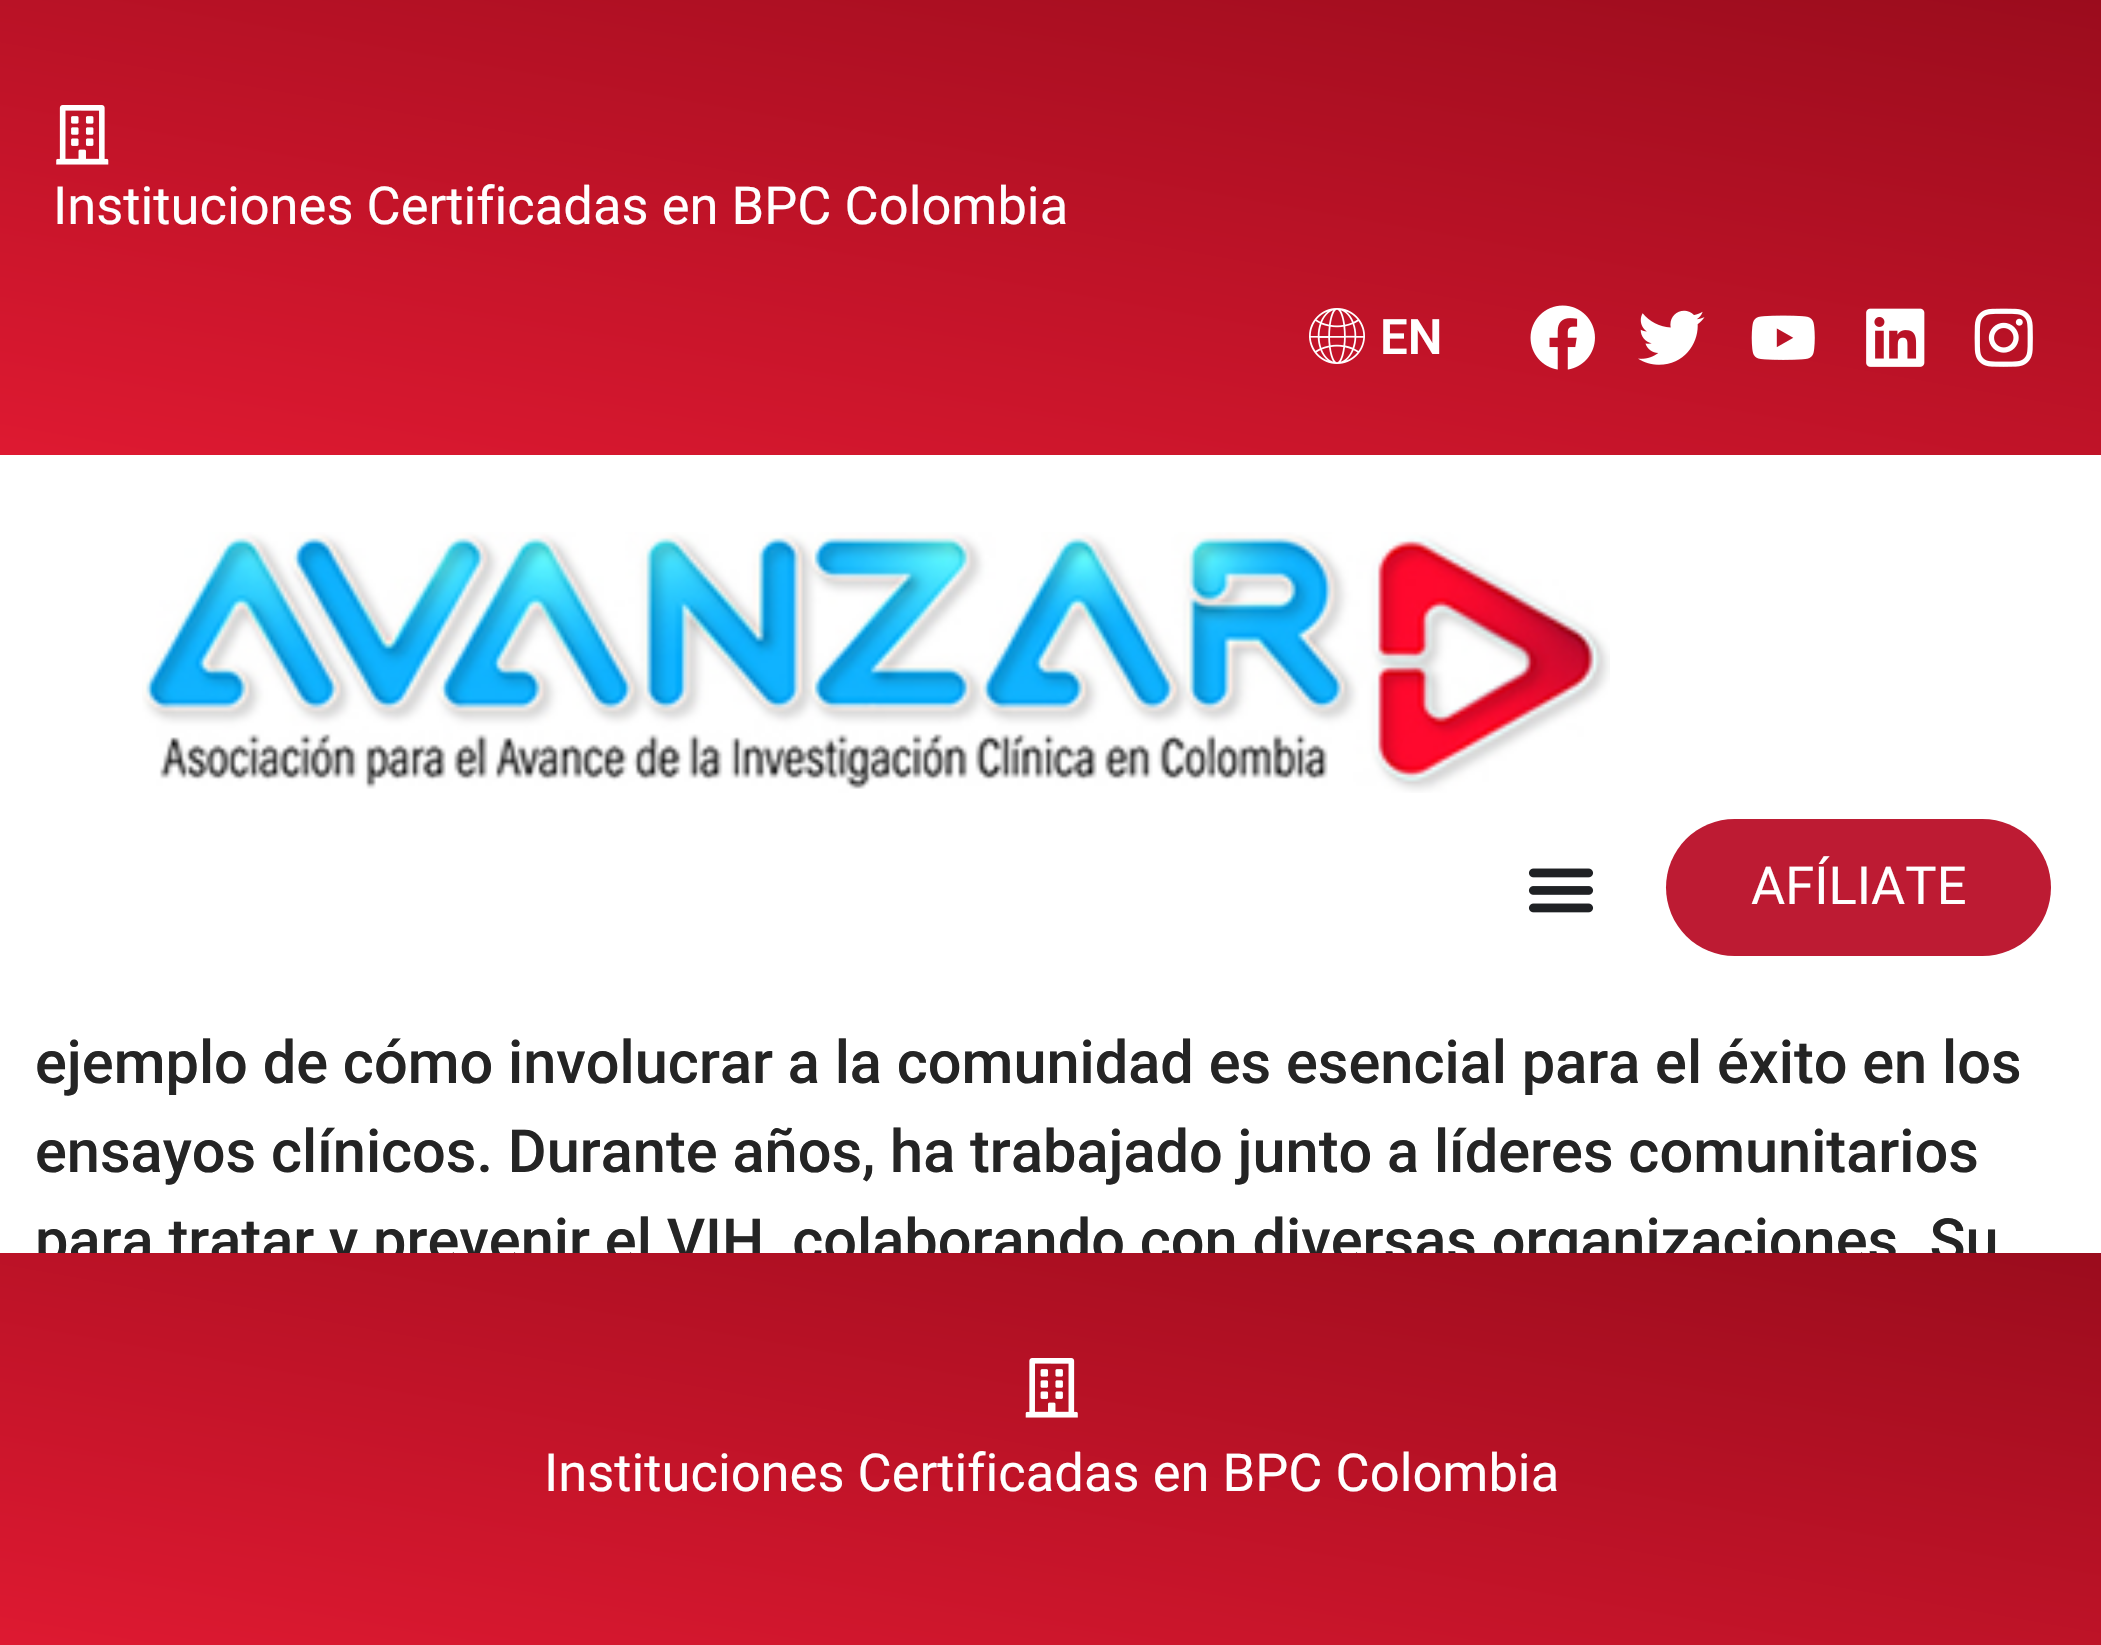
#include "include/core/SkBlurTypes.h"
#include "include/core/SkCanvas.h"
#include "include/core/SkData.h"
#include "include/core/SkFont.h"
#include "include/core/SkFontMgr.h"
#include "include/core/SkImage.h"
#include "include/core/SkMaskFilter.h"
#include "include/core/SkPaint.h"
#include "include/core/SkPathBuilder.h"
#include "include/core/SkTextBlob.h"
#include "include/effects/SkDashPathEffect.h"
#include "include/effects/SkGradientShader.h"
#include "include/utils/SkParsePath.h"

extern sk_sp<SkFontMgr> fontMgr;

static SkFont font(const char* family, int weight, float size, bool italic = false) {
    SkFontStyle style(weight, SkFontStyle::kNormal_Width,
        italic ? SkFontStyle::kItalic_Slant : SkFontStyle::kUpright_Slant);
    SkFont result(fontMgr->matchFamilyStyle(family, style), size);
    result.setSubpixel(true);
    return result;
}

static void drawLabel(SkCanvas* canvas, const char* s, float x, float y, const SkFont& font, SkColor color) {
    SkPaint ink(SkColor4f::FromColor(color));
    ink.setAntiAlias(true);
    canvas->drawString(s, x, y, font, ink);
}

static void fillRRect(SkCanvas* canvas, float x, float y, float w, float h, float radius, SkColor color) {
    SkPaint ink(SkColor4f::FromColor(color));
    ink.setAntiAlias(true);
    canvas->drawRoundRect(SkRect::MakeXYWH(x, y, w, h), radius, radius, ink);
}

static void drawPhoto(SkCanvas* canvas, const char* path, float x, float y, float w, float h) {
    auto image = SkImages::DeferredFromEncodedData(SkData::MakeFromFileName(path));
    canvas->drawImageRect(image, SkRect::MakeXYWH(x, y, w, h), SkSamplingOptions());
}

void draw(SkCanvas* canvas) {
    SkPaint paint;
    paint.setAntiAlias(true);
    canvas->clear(0xFFFFFFFF);
    {
        const SkColor colors[] = {0xFF9B0C1D, 0xFFDE1931};
        const float stops[] = {0, 1};
        const SkPoint ends[] = {{1122, -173}, {981, 628}};
        paint.setShader(SkGradientShader::MakeLinear(ends, colors, stops, 2, SkTileMode::kClamp));
        paint.setAlpha(255);
    }
    canvas->drawRect(SkRect::MakeXYWH(0, 0, 2101, 455), paint);
    drawPhoto(canvas, "assets/img1.png", 56, 105, 53, 60);
    SkFont font1 = font("Roboto", 400, 52.5f);
    drawLabel(canvas, "Instituciones Certificadas en BPC Colombia", 53, 224, font1, 0xFFFFFFFF);
    drawPhoto(canvas, "assets/img2.png", 1309, 308, 56, 56);
    SkFont font2 = font("Roboto", 600, 49);
    drawLabel(canvas, "EN", 1380, 354, font2, 0xFFFFFFFF);
    drawPhoto(canvas, "assets/img3.png", 1530, 305, 65, 65);
    drawPhoto(canvas, "assets/img4.png", 1638, 310, 67, 55);
    drawPhoto(canvas, "assets/img5.png", 1751, 315, 64, 45);
    drawPhoto(canvas, "assets/img6.png", 1866, 308, 59, 59);
    drawPhoto(canvas, "assets/img7.png", 1974, 308, 59, 59);
    drawPhoto(canvas, "assets/img8.png", 142, 532, 1468, 261);
    drawPhoto(canvas, "assets/img9.png", 1528, 868, 66, 45);
    fillRRect(canvas, 1666, 819, 385, 137, 68.5f, 0xFFBD1B33);
    drawLabel(canvas, "AFÍLIATE", 1751, 904, font1, 0xFFFFFFFF);
    SkFont font3 = font("Roboto", 500, 59.5f);
    drawLabel(canvas, "ejemplo de cómo involucrar a la comunidad es esencial para el éxito en los", 35, 1083, font3, 0xFF242424);
    drawLabel(canvas, "ensayos clínicos. Durante años, ha trabajado junto a líderes comunitarios", 35, 1172, font3, 0xFF242424);
    drawLabel(canvas, "para tratar y prevenir el VIH, colaborando con diversas organizaciones. Su", 35, 1261, font3, 0xFF242424);
    {
        const SkColor colors[] = {0xFF9B0C1D, 0xFFDE1931};
        const float stops[] = {0, 1};
        const SkPoint ends[] = {{1117, 1079}, {987, 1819}};
        paint.setShader(SkGradientShader::MakeLinear(ends, colors, stops, 2, SkTileMode::kClamp));
        paint.setAlpha(255);
    }
    canvas->drawRect(SkRect::MakeXYWH(0, 1253, 2101, 392), paint);
    drawPhoto(canvas, "assets/img10.png", 1025, 1358, 53, 60);
    drawLabel(canvas, "Instituciones Certificadas en BPC Colombia", 544, 1491, font1, 0xFFFFFFFF);
}
